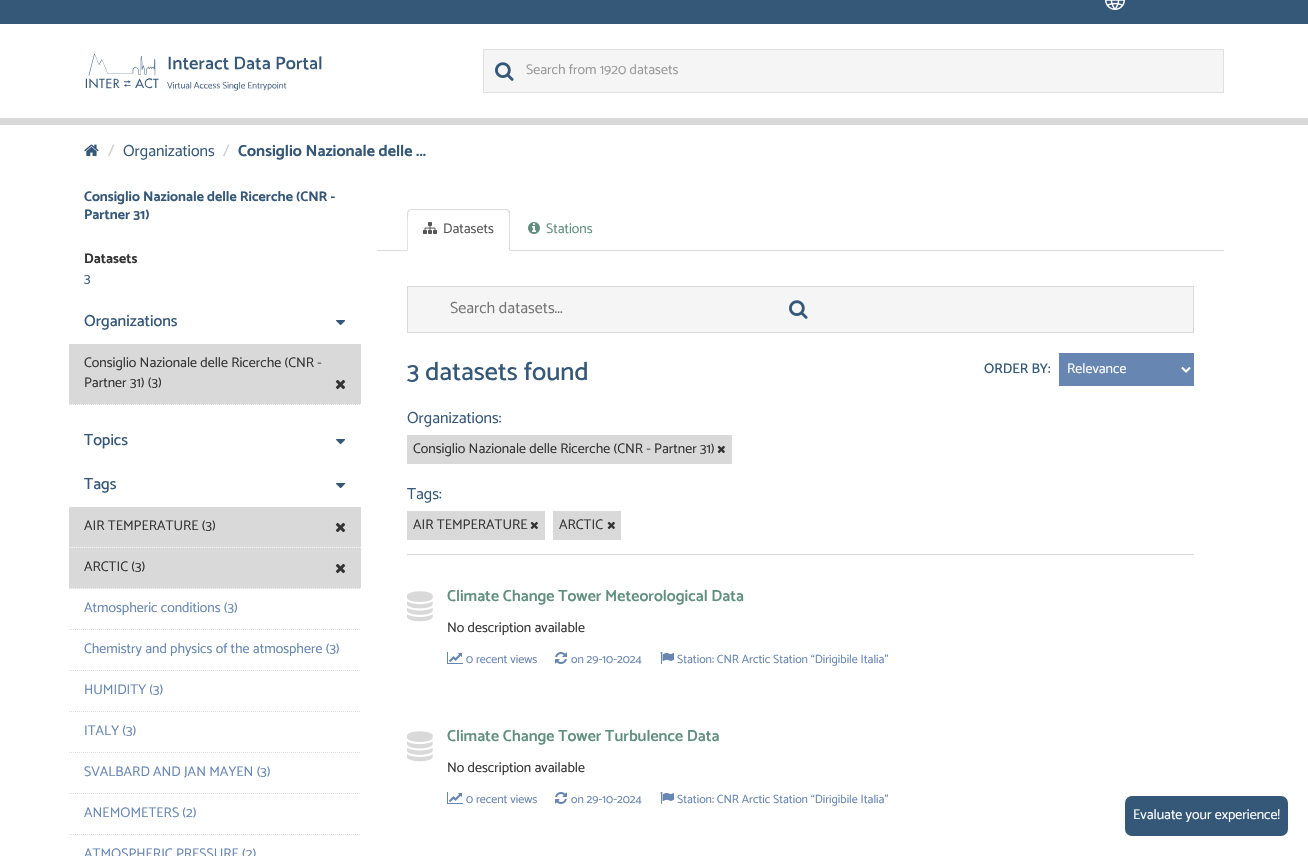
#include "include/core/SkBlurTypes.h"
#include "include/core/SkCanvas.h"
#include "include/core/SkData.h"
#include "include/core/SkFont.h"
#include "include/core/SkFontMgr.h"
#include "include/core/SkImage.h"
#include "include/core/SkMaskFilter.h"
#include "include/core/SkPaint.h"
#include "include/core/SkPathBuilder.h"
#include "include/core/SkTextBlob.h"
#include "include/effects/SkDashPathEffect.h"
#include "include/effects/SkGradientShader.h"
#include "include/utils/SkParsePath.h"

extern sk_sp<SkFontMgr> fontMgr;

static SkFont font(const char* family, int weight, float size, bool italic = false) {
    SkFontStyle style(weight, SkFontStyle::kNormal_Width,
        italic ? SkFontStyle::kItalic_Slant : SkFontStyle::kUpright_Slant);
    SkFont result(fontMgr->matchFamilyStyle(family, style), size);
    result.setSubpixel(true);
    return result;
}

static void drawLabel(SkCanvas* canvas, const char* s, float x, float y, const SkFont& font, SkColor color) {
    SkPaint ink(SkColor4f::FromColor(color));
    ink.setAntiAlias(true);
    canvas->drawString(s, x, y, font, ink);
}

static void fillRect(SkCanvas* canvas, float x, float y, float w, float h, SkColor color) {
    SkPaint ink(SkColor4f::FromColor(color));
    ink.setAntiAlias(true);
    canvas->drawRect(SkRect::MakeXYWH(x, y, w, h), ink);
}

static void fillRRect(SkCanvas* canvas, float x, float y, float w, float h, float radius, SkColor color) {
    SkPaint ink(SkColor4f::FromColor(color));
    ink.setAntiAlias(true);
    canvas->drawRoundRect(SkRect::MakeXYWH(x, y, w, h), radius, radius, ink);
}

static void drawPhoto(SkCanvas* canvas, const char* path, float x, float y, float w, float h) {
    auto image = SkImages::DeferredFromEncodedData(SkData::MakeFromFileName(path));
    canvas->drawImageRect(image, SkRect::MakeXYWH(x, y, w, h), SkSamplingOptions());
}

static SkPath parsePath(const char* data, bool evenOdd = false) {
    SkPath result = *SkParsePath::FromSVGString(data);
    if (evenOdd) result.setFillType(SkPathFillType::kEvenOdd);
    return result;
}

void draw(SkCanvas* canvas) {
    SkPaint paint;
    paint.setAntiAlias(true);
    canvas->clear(0xFFFFFFFF);
    fillRect(canvas, 0, 0, 1308, 24, 0xFF355778);
    drawPhoto(canvas, "assets/img1.png", 1105, 0, 20, 10);
    fillRect(canvas, 0, 118, 1308, 7, 0xFFD9D9D9);
    drawPhoto(canvas, "assets/img2.png", 85, 53, 237, 38);
    paint.setColor(0xFFF5F5F5);
    canvas->drawRect(SkRect::MakeXYWH(483.5f, 49.5f, 740, 43), paint);
    paint.setStroke(true);
    paint.setStrokeWidth(1);
    paint.setColor(0xFFE0E0E0);
    canvas->drawRect(SkRect::MakeXYWH(483.5f, 49.5f, 740, 43), paint);
    drawPhoto(canvas, "assets/img3.png", 495, 62, 19, 19);
    SkFont font1 = font("Catamaran", 400, 14);
    drawLabel(canvas, "Search from 1920 datasets", 526, 74, font1, 0xFF999999);
    drawPhoto(canvas, "assets/img4.png", 84, 144, 15, 12);
    SkFont font2 = font("Catamaran", 400, 16);
    drawLabel(canvas, "/", 108, 156, font2, 0xFFCCCCCC);
    drawLabel(canvas, "Organizations", 123, 156, font2, 0xFF355778);
    drawLabel(canvas, "/", 223, 156, font2, 0xFFCCCCCC);
    SkFont font3 = font("Catamaran", 700, 16);
    drawLabel(canvas, "Consiglio Nazionale delle ...", 238, 156, font3, 0xFF355778);
    SkFont font4 = font("Catamaran", 700, 14);
    drawLabel(canvas, "Consiglio Nazionale delle Ricerche (CNR -", 84, 201, font4, 0xFF355778);
    drawLabel(canvas, "Partner 31)", 84, 219, font4, 0xFF355778);
    drawLabel(canvas, "Datasets", 84, 263, font4, 0xFF333333);
    drawLabel(canvas, "3", 84, 283, font1, 0xFF355778);
    SkFont font5 = font("Catamaran", 500, 16);
    drawLabel(canvas, "Organizations", 84, 326, font5, 0xFF355778);
    drawPhoto(canvas, "assets/img5.png", 336, 320, 10, 6);
    fillRect(canvas, 69, 344, 292, 60, 0xFFD9D9D9);
    drawLabel(canvas, "Consiglio Nazionale delle Ricerche (CNR -", 84, 367, font1, 0xFF333333);
    drawLabel(canvas, "Partner 31) (3)", 84, 387, font1, 0xFF333333);
    drawPhoto(canvas, "assets/img6.png", 335, 379, 11, 11);
    paint.setColor(0xFFDDDDDD);
    paint.setPathEffect(SkDashPathEffect::Make({{1, 1}}, 0));
    canvas->drawPath(parsePath("M69 404.5H361"), paint);
    paint.setPathEffect(nullptr);
    drawLabel(canvas, "Topics", 84, 445, font5, 0xFF355778);
    drawPhoto(canvas, "assets/img5.png", 336, 439, 10, 6);
    drawLabel(canvas, "Tags", 84, 489, font5, 0xFF355778);
    drawPhoto(canvas, "assets/img5.png", 336, 483, 10, 6);
    fillRect(canvas, 70, 547, 291, 1, 0xFFF6F6F6);
    paint.setPathEffect(SkDashPathEffect::Make({{1, 1}}, 0));
    canvas->drawPath(parsePath("M69 547.5H361"), paint);
    paint.setPathEffect(nullptr);
    fillRect(canvas, 69, 507, 292, 40, 0xFFD9D9D9);
    drawLabel(canvas, "AIR TEMPERATURE (3)", 84, 530, font1, 0xFF333333);
    drawPhoto(canvas, "assets/img6.png", 335, 522, 11, 11);
    fillRect(canvas, 70, 588, 291, 1, 0xFFF6F6F6);
    paint.setPathEffect(SkDashPathEffect::Make({{1, 1}}, 0));
    canvas->drawPath(parsePath("M69 588.5H361"), paint);
    paint.setPathEffect(nullptr);
    fillRect(canvas, 69, 548, 292, 40, 0xFFD9D9D9);
    drawLabel(canvas, "ARCTIC (3)", 84, 571, font1, 0xFF333333);
    drawPhoto(canvas, "assets/img6.png", 335, 563, 11, 11);
    paint.setPathEffect(SkDashPathEffect::Make({{1, 1}}, 0));
    canvas->drawPath(parsePath("M69 629.5H361"), paint);
    paint.setPathEffect(nullptr);
    drawLabel(canvas, "Atmospheric conditions (3)", 84, 612, font1, 0xFF6786B2);
    paint.setPathEffect(SkDashPathEffect::Make({{1, 1}}, 0));
    canvas->drawPath(parsePath("M69 670.5H361"), paint);
    paint.setPathEffect(nullptr);
    drawLabel(canvas, "Chemistry and physics of the atmosphere (3)", 84, 653, font1, 0xFF6786B2);
    paint.setPathEffect(SkDashPathEffect::Make({{1, 1}}, 0));
    canvas->drawPath(parsePath("M69 711.5H361"), paint);
    paint.setPathEffect(nullptr);
    drawLabel(canvas, "HUMIDITY (3)", 84, 694, font1, 0xFF6786B2);
    paint.setPathEffect(SkDashPathEffect::Make({{1, 1}}, 0));
    canvas->drawPath(parsePath("M69 752.5H361"), paint);
    paint.setPathEffect(nullptr);
    drawLabel(canvas, "ITALY (3)", 84, 735, font1, 0xFF6786B2);
    paint.setPathEffect(SkDashPathEffect::Make({{1, 1}}, 0));
    canvas->drawPath(parsePath("M69 793.5H361"), paint);
    paint.setPathEffect(nullptr);
    drawLabel(canvas, "SVALBARD AND JAN MAYEN (3)", 84, 776, font1, 0xFF6786B2);
    paint.setPathEffect(SkDashPathEffect::Make({{1, 1}}, 0));
    canvas->drawPath(parsePath("M69 834.5H361"), paint);
    paint.setPathEffect(nullptr);
    drawLabel(canvas, "ANEMOMETERS (2)", 84, 817, font1, 0xFF6786B2);
    drawLabel(canvas, "ATMOSPHERIC PRESSURE (2)", 84, 858, font1, 0xFF6786B2);
    fillRect(canvas, 377, 250, 847, 1, 0xFFDDDDDD);
    paint.setStroke(false);
    paint.setColor(0xFFFFFFFF);
    canvas->drawPath(parsePath("M411 209H506C508 209 510 211 510 213V251H407V213C407 211 409 209 411 209Z"), paint);
    paint.setColor(0xFFDDDDDD);
    canvas->drawPath(parsePath("M411 209L408 210L409 211L411 210H506L508 211L509 210L506 209Z"), paint);
    canvas->drawPath(parsePath("M510 251V213C510 212 510 211 509 210L508 211C510 213 509 245 509 250Z"), paint);
    canvas->drawPath(parsePath("M407 251L408 250C408 245 407 213 409 211L408 210L407 213Z"), paint);
    drawPhoto(canvas, "assets/img7.png", 423, 222, 14, 12);
    drawLabel(canvas, "Datasets", 443, 233, font1, 0xFF555555);
    drawPhoto(canvas, "assets/img8.png", 528, 222, 12, 12);
    drawLabel(canvas, "Stations", 546, 233, font1, 0xFF608E7F);
    fillRect(canvas, 407, 554, 787, 1, 0xFFD9D9D9);
    paint.setColor(0xFFF5F5F5);
    canvas->drawRect(SkRect::MakeXYWH(407.5f, 286.5f, 786, 46), paint);
    paint.setStroke(true);
    paint.setColor(0xFFD9D9D9);
    canvas->drawRect(SkRect::MakeXYWH(407.5f, 286.5f, 786, 46), paint);
    drawLabel(canvas, "Search datasets...", 450, 313, font2, 0xFF757575);
    drawPhoto(canvas, "assets/img3.png", 789, 300, 19, 19);
    SkFont font6 = font("Catamaran", 500, 26);
    drawLabel(canvas, "3 datasets found", 407, 380, font6, 0xFF355778);
    SkFont font7 = font("Catamaran", 500, 14);
    drawLabel(canvas, "ORDER BY:", 984, 373, font7, 0xFF355778);
    fillRect(canvas, 1059, 353, 135, 33, 0xFF6786B2);
    paint.setStrokeWidth(2);
    paint.setColor(0xFFFFFFFF);
    canvas->drawPath(parsePath("M1182 367.5L1186 371.5L1190 367.5"), paint);
    drawLabel(canvas, "Relevance", 1067, 373, font1, 0xFFFFFFFF);
    drawLabel(canvas, "Organizations:", 407, 423, font2, 0xFF355778);
    fillRect(canvas, 407, 435, 325, 29, 0xFFD9D9D9);
    drawLabel(canvas, "Consiglio Nazionale delle Ricerche (CNR - Partner 31)", 413, 453, font1, 0xFF333333);
    drawPhoto(canvas, "assets/img9.png", 717, 445, 8, 9);
    drawLabel(canvas, "Tags:", 407, 499, font2, 0xFF355778);
    fillRect(canvas, 407, 511, 138, 29, 0xFFD9D9D9);
    drawLabel(canvas, "AIR TEMPERATURE", 413, 529, font1, 0xFF333333);
    drawPhoto(canvas, "assets/img9.png", 530, 521, 8, 9);
    fillRect(canvas, 553, 511, 68, 29, 0xFFD9D9D9);
    drawLabel(canvas, "ARCTIC", 559, 529, font1, 0xFF333333);
    drawPhoto(canvas, "assets/img9.png", 607, 521, 8, 9);
    drawPhoto(canvas, "assets/img10.png", 407, 591, 26, 31);
    SkFont font8 = font("Catamaran", 600, 16);
    drawLabel(canvas, "Climate Change Tower Meteorological Data", 447, 601, font8, 0xFF608E7F);
    drawLabel(canvas, "No description available", 447, 632, font1, 0xFF333333);
    drawPhoto(canvas, "assets/img11.png", 447, 652, 16, 12);
    SkFont font9 = font("Catamaran", 400, 12);
    drawLabel(canvas, "0 recent views", 466, 663, font9, 0xFF6786B2);
    drawPhoto(canvas, "assets/img12.png", 555, 652, 12, 12);
    drawLabel(canvas, "on 29-10-2024", 571, 663, font9, 0xFF6786B2);
    drawPhoto(canvas, "assets/img13.png", 660, 652, 14, 12);
    drawLabel(canvas, "Station: CNR Arctic Station “Dirigibile Italia”", 677, 663, font9, 0xFF6786B2);
    drawPhoto(canvas, "assets/img10.png", 407, 731, 26, 31);
    drawLabel(canvas, "Climate Change Tower Turbulence Data", 447, 741, font8, 0xFF608E7F);
    drawLabel(canvas, "No description available", 447, 772, font1, 0xFF333333);
    drawPhoto(canvas, "assets/img11.png", 447, 792, 16, 12);
    drawLabel(canvas, "0 recent views", 466, 803, font9, 0xFF6786B2);
    drawPhoto(canvas, "assets/img12.png", 555, 792, 12, 12);
    drawLabel(canvas, "on 29-10-2024", 571, 803, font9, 0xFF6786B2);
    drawPhoto(canvas, "assets/img13.png", 660, 792, 14, 12);
    drawLabel(canvas, "Station: CNR Arctic Station “Dirigibile Italia”", 677, 803, font9, 0xFF6786B2);
    fillRRect(canvas, 1125, 796, 163, 40, 7, 0xFF355778);
    drawLabel(canvas, "Evaluate your experience!", 1133, 819, font1, 0xFFFFFFFF);
}
